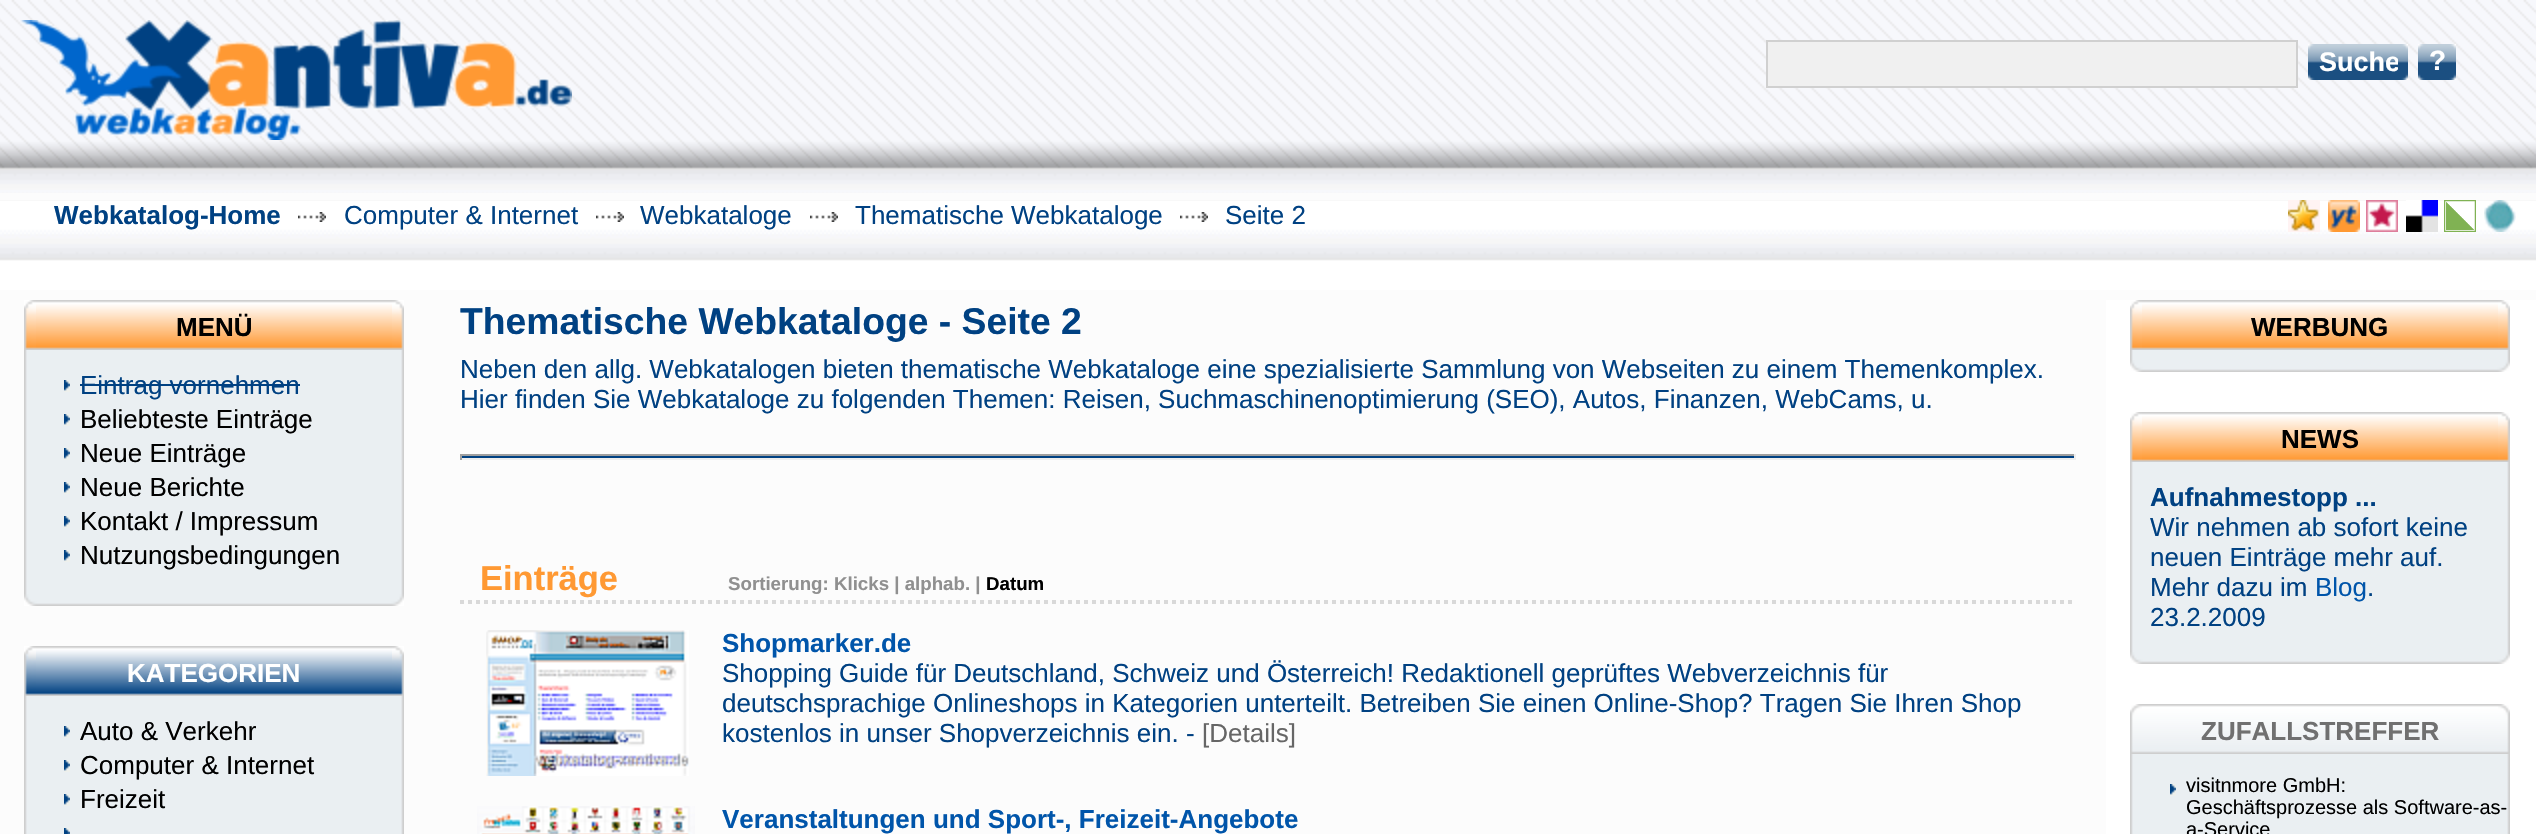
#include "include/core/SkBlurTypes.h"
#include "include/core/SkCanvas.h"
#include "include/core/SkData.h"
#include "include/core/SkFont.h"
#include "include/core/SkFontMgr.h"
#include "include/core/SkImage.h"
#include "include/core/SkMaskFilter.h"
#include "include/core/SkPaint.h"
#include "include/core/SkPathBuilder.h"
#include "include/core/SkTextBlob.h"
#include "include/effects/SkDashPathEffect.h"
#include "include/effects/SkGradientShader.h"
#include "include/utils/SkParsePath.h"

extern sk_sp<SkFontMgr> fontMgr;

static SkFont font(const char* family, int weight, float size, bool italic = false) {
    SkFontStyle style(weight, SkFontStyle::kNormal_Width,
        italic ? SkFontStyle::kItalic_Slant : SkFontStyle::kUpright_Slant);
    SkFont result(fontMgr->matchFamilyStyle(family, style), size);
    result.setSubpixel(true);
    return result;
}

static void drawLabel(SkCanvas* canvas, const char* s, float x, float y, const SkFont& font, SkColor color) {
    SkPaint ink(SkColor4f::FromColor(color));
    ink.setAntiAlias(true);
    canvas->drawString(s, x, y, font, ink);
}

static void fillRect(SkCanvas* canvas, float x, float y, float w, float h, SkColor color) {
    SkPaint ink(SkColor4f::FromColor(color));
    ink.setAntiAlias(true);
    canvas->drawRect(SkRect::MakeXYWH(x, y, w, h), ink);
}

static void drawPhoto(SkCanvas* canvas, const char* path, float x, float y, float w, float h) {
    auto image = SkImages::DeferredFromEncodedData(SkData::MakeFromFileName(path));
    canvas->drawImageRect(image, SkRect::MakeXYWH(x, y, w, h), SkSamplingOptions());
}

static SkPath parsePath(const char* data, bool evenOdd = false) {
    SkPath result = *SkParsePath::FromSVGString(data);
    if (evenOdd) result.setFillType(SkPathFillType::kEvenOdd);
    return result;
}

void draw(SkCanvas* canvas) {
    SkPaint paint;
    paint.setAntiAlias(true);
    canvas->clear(0xFFFCFCFC);
    drawPhoto(canvas, "assets/img1.png", 0, 0, 2536, 193);
    drawPhoto(canvas, "assets/img2.png", 20, 20, 552, 120);
    paint.setColor(0xFFF0F0F0);
    canvas->drawRect(SkRect::MakeXYWH(1767, 41, 530, 46), paint);
    paint.setStroke(true);
    paint.setStrokeWidth(2);
    paint.setColor(0xFFD0D0D0);
    canvas->drawRect(SkRect::MakeXYWH(1767, 41, 530, 46), paint);
    drawPhoto(canvas, "assets/img3.png", 2308, 44, 10, 36);
    drawPhoto(canvas, "assets/img4.png", 2318, 44, 80, 36);
    SkFont font1 = font("Liberation Sans", 700, 27);
    drawLabel(canvas, "Suche", 2319, 71, font1, 0xFFFFFFFF);
    drawPhoto(canvas, "assets/img5.png", 2398, 44, 10, 36);
    drawPhoto(canvas, "assets/img3.png", 2418, 44, 10, 36);
    drawPhoto(canvas, "assets/img6.png", 2428, 44, 18, 36);
    SkFont font2 = font("Liberation Sans", 700, 28);
    drawLabel(canvas, "?", 2429, 70, font2, 0xFFFFFFFF);
    drawPhoto(canvas, "assets/img5.png", 2446, 44, 10, 36);
    fillRect(canvas, 0, 261, 2536, 29, 0xFFFFFFFF);
    drawPhoto(canvas, "assets/img7.png", 0, 200, 2536, 61);
    SkFont font3 = font("Liberation Sans", 700, 26);
    drawLabel(canvas, "Webkatalog-Home", 54, 224, font3, 0xFF004182);
    drawPhoto(canvas, "assets/img8.png", 298, 212, 28, 10);
    SkFont font4 = font("Liberation Sans", 400, 26);
    drawLabel(canvas, "Computer & Internet", 344, 224, font4, 0xFF004182);
    drawPhoto(canvas, "assets/img8.png", 596, 212, 28, 10);
    drawLabel(canvas, "Webkataloge", 640, 224, font4, 0xFF004182);
    drawPhoto(canvas, "assets/img8.png", 810, 212, 28, 10);
    drawLabel(canvas, "Thematische Webkataloge", 855, 224, font4, 0xFF004182);
    drawPhoto(canvas, "assets/img8.png", 1180, 212, 28, 10);
    drawLabel(canvas, "Seite 2", 1225, 224, font4, 0xFF004182);
    drawPhoto(canvas, "assets/img9.png", 2288, 200, 32, 32);
    drawPhoto(canvas, "assets/img10.png", 2328, 200, 32, 32);
    drawPhoto(canvas, "assets/img11.png", 2366, 200, 32, 32);
    drawPhoto(canvas, "assets/img12.png", 2406, 200, 32, 32);
    drawPhoto(canvas, "assets/img13.png", 2444, 200, 32, 32);
    drawPhoto(canvas, "assets/img14.png", 2484, 200, 32, 32);
    drawPhoto(canvas, "assets/img15.png", 24, 300, 12, 50);
    drawPhoto(canvas, "assets/img16.png", 36, 300, 356, 50);
    drawLabel(canvas, "MENÜ", 176, 336, font3, 0xFF000000);
    drawPhoto(canvas, "assets/img17.png", 392, 300, 12, 50);
    drawPhoto(canvas, "assets/img18.png", 24, 350, 380, 244);
    drawPhoto(canvas, "assets/img19.png", 64, 380, 6, 12);
    drawLabel(canvas, "Eintrag vornehmen", 80, 394, font4, 0xFF004182);
    fillRect(canvas, 80, 384, 220, 2, 0xFF004182);
    drawPhoto(canvas, "assets/img19.png", 64, 414, 6, 12);
    drawLabel(canvas, "Beliebteste Einträge", 80, 428, font4, 0xFF000000);
    drawPhoto(canvas, "assets/img19.png", 64, 448, 6, 12);
    drawLabel(canvas, "Neue Einträge", 80, 462, font4, 0xFF000000);
    drawPhoto(canvas, "assets/img19.png", 64, 482, 6, 12);
    drawLabel(canvas, "Neue Berichte", 80, 496, font4, 0xFF000000);
    drawPhoto(canvas, "assets/img19.png", 64, 516, 6, 12);
    drawLabel(canvas, "Kontakt / Impressum", 80, 530, font4, 0xFF000000);
    drawPhoto(canvas, "assets/img19.png", 64, 550, 6, 12);
    drawLabel(canvas, "Nutzungsbedingungen", 80, 564, font4, 0xFF000000);
    drawPhoto(canvas, "assets/img20.png", 24, 594, 380, 12);
    drawPhoto(canvas, "assets/img21.png", 24, 646, 12, 50);
    drawPhoto(canvas, "assets/img22.png", 36, 646, 356, 50);
    drawLabel(canvas, "KATEGORIEN", 127, 682, font3, 0xFFFFFFFF);
    drawPhoto(canvas, "assets/img23.png", 392, 646, 12, 50);
    drawPhoto(canvas, "assets/img24.png", 24, 696, 380, 138);
    drawPhoto(canvas, "assets/img19.png", 64, 726, 6, 12);
    drawLabel(canvas, "Auto & Verkehr", 80, 740, font4, 0xFF000000);
    drawPhoto(canvas, "assets/img19.png", 64, 760, 6, 12);
    drawLabel(canvas, "Computer & Internet", 80, 774, font4, 0xFF000000);
    drawPhoto(canvas, "assets/img19.png", 64, 794, 6, 12);
    drawLabel(canvas, "Freizeit", 80, 808, font4, 0xFF000000);
    drawPhoto(canvas, "assets/img25.png", 64, 828, 6, 6);
    SkFont font5 = font("Liberation Sans", 700, 37.3f);
    drawLabel(canvas, "Thematische Webkataloge - Seite 2", 460, 334, font5, 0xFF004182);
    drawLabel(canvas, "Neben den allg. Webkatalogen bieten thematische Webkataloge eine spezialisierte Sammlung von Webseiten zu einem Themenkomplex.", 460, 378, font4, 0xFF004182);
    drawLabel(canvas, "Hier finden Sie Webkataloge zu folgenden Themen: Reisen, Suchmaschinenoptimierung (SEO), Autos, Finanzen, WebCams, u.", 460, 408, font4, 0xFF004182);
    fillRect(canvas, 460, 456, 1616, 2, 0xFF004182);
    fillRect(canvas, 460, 454, 1616, 2, 0xFF9F9F9F);
    fillRect(canvas, 2074, 454, 2, 6, 0xFFEEEEEE);
    fillRect(canvas, 460, 458, 1616, 2, 0xFFEEEEEE);
    fillRect(canvas, 460, 454, 2, 6, 0xFF9F9F9F);
    paint.setStrokeWidth(4);
    paint.setColor(0xFFD9D9D9);
    paint.setPathEffect(SkDashPathEffect::Make({{4, 4}}, 0));
    canvas->drawPath(parsePath("M460 602H2076"), paint);
    paint.setPathEffect(nullptr);
    SkFont font6 = font("Liberation Sans", 700, 34.5f);
    drawLabel(canvas, "Einträge", 480, 590, font6, 0xFFFF9933);
    SkFont font7 = font("Liberation Sans", 700, 18.7f);
    drawLabel(canvas, "Sortierung: Klicks | alphab. |", 728, 590, font7, 0xFF909090);
    drawLabel(canvas, "Datum", 986, 590, font7, 0xFF000000);
    drawPhoto(canvas, "assets/img26.png", 486, 630, 203, 146);
    drawLabel(canvas, "Shopmarker.de", 722, 652, font3, 0xFF0055AA);
    drawLabel(canvas, "Shopping Guide für Deutschland, Schweiz und Österreich! Redaktionell geprüftes Webverzeichnis für", 722, 682, font4, 0xFF004182);
    drawLabel(canvas, "deutschsprachige Onlineshops in Kategorien unterteilt. Betreiben Sie einen Online-Shop? Tragen Sie Ihren Shop", 722, 712, font4, 0xFF004182);
    drawLabel(canvas, "kostenlos in unser Shopverzeichnis ein. -", 722, 742, font4, 0xFF004182);
    drawLabel(canvas, "[Details]", 1202, 742, font4, 0xFF666666);
    drawPhoto(canvas, "assets/img27.png", 477, 806, 218, 28);
    drawLabel(canvas, "Veranstaltungen und Sport-, Freizeit-Angebote", 722, 828, font3, 0xFF0055AA);
    fillRect(canvas, 2106, 300, 430, 534, 0xFFFFFFFF);
    drawPhoto(canvas, "assets/img15.png", 2130, 300, 12, 50);
    drawPhoto(canvas, "assets/img16.png", 2142, 300, 356, 50);
    drawLabel(canvas, "WERBUNG", 2251, 336, font3, 0xFF000000);
    drawPhoto(canvas, "assets/img17.png", 2498, 300, 12, 50);
    drawPhoto(canvas, "assets/img28.png", 2130, 350, 380, 10);
    drawPhoto(canvas, "assets/img20.png", 2130, 360, 380, 12);
    drawPhoto(canvas, "assets/img15.png", 2130, 412, 12, 50);
    drawPhoto(canvas, "assets/img16.png", 2142, 412, 356, 50);
    drawLabel(canvas, "NEWS", 2281, 448, font3, 0xFF000000);
    drawPhoto(canvas, "assets/img17.png", 2498, 412, 12, 50);
    drawPhoto(canvas, "assets/img29.png", 2130, 462, 380, 190);
    drawLabel(canvas, "Aufnahmestopp ...", 2150, 506, font3, 0xFF004182);
    drawLabel(canvas, "Wir nehmen ab sofort keine", 2150, 536, font4, 0xFF004182);
    drawLabel(canvas, "neuen Einträge mehr auf.", 2150, 566, font4, 0xFF004182);
    drawLabel(canvas, "Mehr dazu im", 2150, 596, font4, 0xFF004182);
    drawLabel(canvas, "Blog", 2315, 596, font4, 0xFF0055AA);
    drawLabel(canvas, ".", 2367, 596, font4, 0xFF004182);
    drawLabel(canvas, "23.2.2009", 2150, 626, font4, 0xFF004182);
    drawPhoto(canvas, "assets/img20.png", 2130, 652, 380, 12);
    drawPhoto(canvas, "assets/img30.png", 2130, 704, 12, 50);
    drawPhoto(canvas, "assets/img31.png", 2142, 704, 356, 50);
    drawLabel(canvas, "ZUFALLSTREFFER", 2201, 740, font3, 0xFF707070);
    drawPhoto(canvas, "assets/img32.png", 2498, 704, 12, 50);
    drawPhoto(canvas, "assets/img33.png", 2130, 754, 380, 80);
    drawPhoto(canvas, "assets/img19.png", 2170, 784, 6, 12);
    SkFont font8 = font("Liberation Sans", 400, 20);
    drawLabel(canvas, "visitnmore GmbH:", 2186, 792, font8, 0xFF000000);
    drawLabel(canvas, "Geschäftsprozesse als Software-as-", 2186, 814, font8, 0xFF000000);
    drawLabel(canvas, "a-Service", 2186, 836, font8, 0xFF000000);
}
